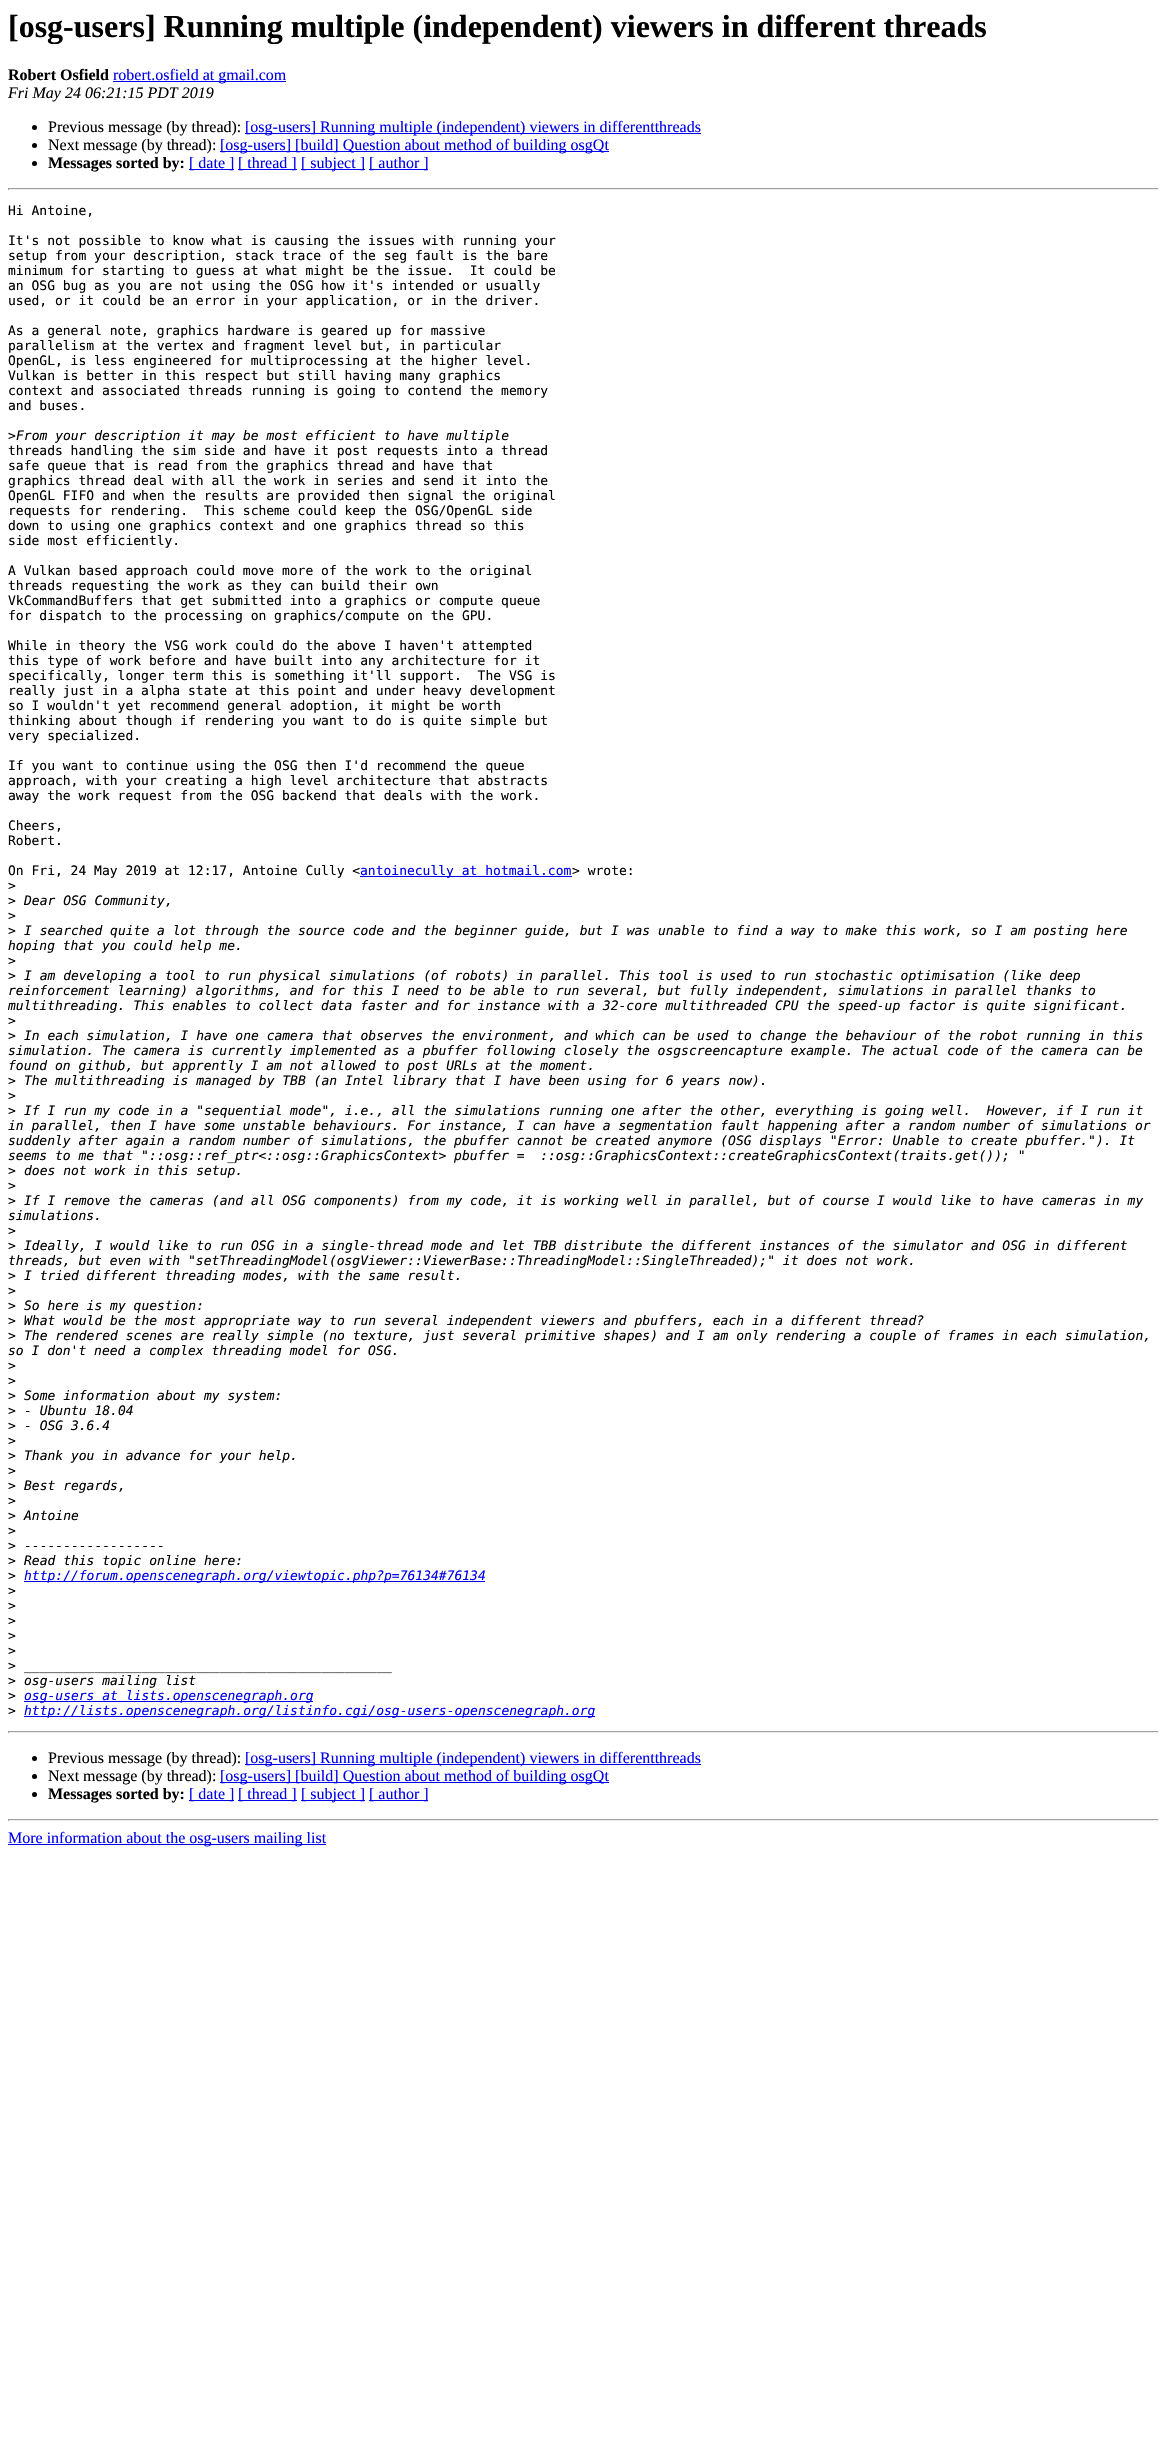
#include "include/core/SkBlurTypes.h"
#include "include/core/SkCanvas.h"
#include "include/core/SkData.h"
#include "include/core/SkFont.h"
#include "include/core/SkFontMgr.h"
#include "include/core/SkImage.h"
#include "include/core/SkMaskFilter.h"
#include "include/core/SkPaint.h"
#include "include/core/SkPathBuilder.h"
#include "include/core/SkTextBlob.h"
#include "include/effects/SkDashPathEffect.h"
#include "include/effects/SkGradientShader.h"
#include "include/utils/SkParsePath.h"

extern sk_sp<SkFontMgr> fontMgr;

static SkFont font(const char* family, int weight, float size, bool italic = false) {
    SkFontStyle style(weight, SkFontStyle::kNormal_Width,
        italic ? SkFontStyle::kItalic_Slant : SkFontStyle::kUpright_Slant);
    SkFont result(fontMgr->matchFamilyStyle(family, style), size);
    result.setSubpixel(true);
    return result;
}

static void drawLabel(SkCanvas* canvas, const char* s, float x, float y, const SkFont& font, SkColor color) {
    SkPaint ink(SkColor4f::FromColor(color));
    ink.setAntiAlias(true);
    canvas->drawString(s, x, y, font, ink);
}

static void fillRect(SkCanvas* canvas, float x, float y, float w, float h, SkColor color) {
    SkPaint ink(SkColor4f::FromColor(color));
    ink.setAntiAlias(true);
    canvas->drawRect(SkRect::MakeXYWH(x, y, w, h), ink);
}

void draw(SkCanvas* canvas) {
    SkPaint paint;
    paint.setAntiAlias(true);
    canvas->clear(0xFFFFFFFF);
    SkFont font1 = font("Liberation Serif", 700, 32);
    drawLabel(canvas, "[osg-users] Running multiple (independent) viewers in different threads", 8, 37, font1, 0xFF000000);
    SkFont font2 = font("Liberation Serif", 700, 16);
    drawLabel(canvas, "Robert Osfield", 8, 80, font2, 0xFF000000);
    fillRect(canvas, 113, 81, 173, 1, 0xFF0000EE);
    SkFont font3 = font("Liberation Serif", 400, 16);
    drawLabel(canvas, "robert.osfield at gmail.com", 113, 80, font3, 0xFF0000EE);
    SkFont font4 = font("Liberation Serif", 400, 16, true);
    drawLabel(canvas, "Fri May 24 06:21:15 PDT 2019", 8, 98, font4, 0xFF000000);
    paint.setColor(0xFF000000);
    canvas->drawCircle(34.5f, 127.5f, 2.5f, paint);
    drawLabel(canvas, "Previous message (by thread):", 48, 132, font3, 0xFF000000);
    fillRect(canvas, 245, 133, 456, 1, 0xFF0000EE);
    drawLabel(canvas, "[osg-users] Running multiple (independent) viewers in differentthreads", 245, 132, font3, 0xFF0000EE);
    canvas->drawCircle(34.5f, 145.5f, 2.5f, paint);
    drawLabel(canvas, "Next message (by thread):", 48, 150, font3, 0xFF000000);
    fillRect(canvas, 220, 151, 389, 1, 0xFF0000EE);
    drawLabel(canvas, "[osg-users] [build] Question about method of building osgQt", 220, 150, font3, 0xFF0000EE);
    canvas->drawCircle(34.5f, 163.5f, 2.5f, paint);
    drawLabel(canvas, "Messages sorted by:", 48, 168, font2, 0xFF000000);
    fillRect(canvas, 189, 169, 45, 1, 0xFF0000EE);
    drawLabel(canvas, "[ date ]", 189, 168, font3, 0xFF0000EE);
    fillRect(canvas, 238, 169, 59, 1, 0xFF0000EE);
    drawLabel(canvas, "[ thread ]", 238, 168, font3, 0xFF0000EE);
    fillRect(canvas, 301, 169, 64, 1, 0xFF0000EE);
    drawLabel(canvas, "[ subject ]", 301, 168, font3, 0xFF0000EE);
    fillRect(canvas, 369, 169, 59, 1, 0xFF0000EE);
    drawLabel(canvas, "[ author ]", 369, 168, font3, 0xFF0000EE);
    fillRect(canvas, 8, 188, 1151, 1, 0xFF9F9F9F);
    fillRect(canvas, 1158, 188, 1, 2, 0xFFEEEEEE);
    fillRect(canvas, 8, 189, 1151, 1, 0xFFEEEEEE);
    fillRect(canvas, 8, 188, 1, 2, 0xFF9F9F9F);
    SkFont font5 = font("DejaVu Sans Mono", 400, 13);
    drawLabel(canvas, "Hi Antoine,", 8, 215, font5, 0xFF000000);
    drawLabel(canvas, "It's not possible to know what is causing the issues with running your", 8, 245, font5, 0xFF000000);
    drawLabel(canvas, "setup from your description, stack trace of the seg fault is the bare", 8, 260, font5, 0xFF000000);
    drawLabel(canvas, "minimum for starting to guess at what might be the issue.  It could be", 8, 275, font5, 0xFF000000);
    drawLabel(canvas, "an OSG bug as you are not using the OSG how it's intended or usually", 8, 290, font5, 0xFF000000);
    drawLabel(canvas, "used, or it could be an error in your application, or in the driver.", 8, 305, font5, 0xFF000000);
    drawLabel(canvas, "As a general note, graphics hardware is geared up for massive", 8, 335, font5, 0xFF000000);
    drawLabel(canvas, "parallelism at the vertex and fragment level but, in particular", 8, 350, font5, 0xFF000000);
    drawLabel(canvas, "OpenGL, is less engineered for multiprocessing at the higher level.", 8, 365, font5, 0xFF000000);
    drawLabel(canvas, "Vulkan is better in this respect but still having many graphics", 8, 380, font5, 0xFF000000);
    drawLabel(canvas, "context and associated threads running is going to contend the memory", 8, 395, font5, 0xFF000000);
    drawLabel(canvas, "and buses.", 8, 410, font5, 0xFF000000);
    drawLabel(canvas, ">", 8, 440, font5, 0xFF000000);
    SkFont font6 = font("DejaVu Sans Mono", 400, 13, true);
    drawLabel(canvas, "From your description it may be most efficient to have multiple", 16, 440, font6, 0xFF000000);
    drawLabel(canvas, "threads handling the sim side and have it post requests into a thread", 8, 455, font5, 0xFF000000);
    drawLabel(canvas, "safe queue that is read from the graphics thread and have that", 8, 470, font5, 0xFF000000);
    drawLabel(canvas, "graphics thread deal with all the work in series and send it into the", 8, 485, font5, 0xFF000000);
    drawLabel(canvas, "OpenGL FIFO and when the results are provided then signal the original", 8, 500, font5, 0xFF000000);
    drawLabel(canvas, "requests for rendering.  This scheme could keep the OSG/OpenGL side", 8, 515, font5, 0xFF000000);
    drawLabel(canvas, "down to using one graphics context and one graphics thread so this", 8, 530, font5, 0xFF000000);
    drawLabel(canvas, "side most efficiently.", 8, 545, font5, 0xFF000000);
    drawLabel(canvas, "A Vulkan based approach could move more of the work to the original", 8, 575, font5, 0xFF000000);
    drawLabel(canvas, "threads requesting the work as they can build their own", 8, 590, font5, 0xFF000000);
    drawLabel(canvas, "VkCommandBuffers that get submitted into a graphics or compute queue", 8, 605, font5, 0xFF000000);
    drawLabel(canvas, "for dispatch to the processing on graphics/compute on the GPU.", 8, 620, font5, 0xFF000000);
    drawLabel(canvas, "While in theory the VSG work could do the above I haven't attempted", 8, 650, font5, 0xFF000000);
    drawLabel(canvas, "this type of work before and have built into any architecture for it", 8, 665, font5, 0xFF000000);
    drawLabel(canvas, "specifically, longer term this is something it'll support.  The VSG is", 8, 680, font5, 0xFF000000);
    drawLabel(canvas, "really just in a alpha state at this point and under heavy development", 8, 695, font5, 0xFF000000);
    drawLabel(canvas, "so I wouldn't yet recommend general adoption, it might be worth", 8, 710, font5, 0xFF000000);
    drawLabel(canvas, "thinking about though if rendering you want to do is quite simple but", 8, 725, font5, 0xFF000000);
    drawLabel(canvas, "very specialized.", 8, 740, font5, 0xFF000000);
    drawLabel(canvas, "If you want to continue using the OSG then I'd recommend the queue", 8, 770, font5, 0xFF000000);
    drawLabel(canvas, "approach, with your creating a high level architecture that abstracts", 8, 785, font5, 0xFF000000);
    drawLabel(canvas, "away the work request from the OSG backend that deals with the work.", 8, 800, font5, 0xFF000000);
    drawLabel(canvas, "Cheers,", 8, 830, font5, 0xFF000000);
    drawLabel(canvas, "Robert.", 8, 845, font5, 0xFF000000);
    drawLabel(canvas, "On Fri, 24 May 2019 at 12:17, Antoine Cully <", 8, 875, font5, 0xFF000000);
    fillRect(canvas, 360, 876, 212, 1, 0xFF0000EE);
    drawLabel(canvas, "antoinecully at hotmail.com", 360, 875, font5, 0xFF0000EE);
    drawLabel(canvas, "> wrote:", 572, 875, font5, 0xFF000000);
    drawLabel(canvas, ">", 8, 890, font5, 0xFF000000);
    drawLabel(canvas, ">", 8, 905, font5, 0xFF000000);
    drawLabel(canvas, "Dear OSG Community,", 24, 905, font6, 0xFF000000);
    drawLabel(canvas, ">", 8, 920, font5, 0xFF000000);
    drawLabel(canvas, ">", 8, 935, font5, 0xFF000000);
    drawLabel(canvas, "I searched quite a lot through the source code and the beginner guide, but I was unable to find a way to make this work, so I am posting here", 24, 935, font6, 0xFF000000);
    drawLabel(canvas, "hoping that you could help me.", 8, 950, font6, 0xFF000000);
    drawLabel(canvas, ">", 8, 965, font5, 0xFF000000);
    drawLabel(canvas, ">", 8, 980, font5, 0xFF000000);
    drawLabel(canvas, "I am developing a tool to run physical simulations (of robots) in parallel. This tool is used to run stochastic optimisation (like deep", 24, 980, font6, 0xFF000000);
    drawLabel(canvas, "reinforcement learning) algorithms, and for this I need to be able to run several, but fully independent, simulations in parallel thanks to", 8, 995, font6, 0xFF000000);
    drawLabel(canvas, "multithreading. This enables to collect data faster and for instance with a 32-core multithreaded CPU the speed-up factor is quite significant.", 8, 1010, font6, 0xFF000000);
    drawLabel(canvas, ">", 8, 1025, font5, 0xFF000000);
    drawLabel(canvas, ">", 8, 1040, font5, 0xFF000000);
    drawLabel(canvas, "In each simulation, I have one camera that observes the environment, and which can be used to change the behaviour of the robot running in this", 24, 1040, font6, 0xFF000000);
    drawLabel(canvas, "simulation. The camera is currently implemented as a pbuffer following closely the osgscreencapture example. The actual code of the camera can be", 8, 1055, font6, 0xFF000000);
    drawLabel(canvas, "found on github, but apprently I am not allowed to post URLs at the moment.", 8, 1070, font6, 0xFF000000);
    drawLabel(canvas, ">", 8, 1085, font5, 0xFF000000);
    drawLabel(canvas, "The multithreading is managed by TBB (an Intel library that I have been using for 6 years now).", 24, 1085, font6, 0xFF000000);
    drawLabel(canvas, ">", 8, 1100, font5, 0xFF000000);
    drawLabel(canvas, ">", 8, 1115, font5, 0xFF000000);
    drawLabel(canvas, "If I run my code in a \"sequential mode\", i.e., all the simulations running one after the other, everything is going well.  However, if I run it", 24, 1115, font6, 0xFF000000);
    drawLabel(canvas, "in parallel, then I have some unstable behaviours. For instance, I can have a segmentation fault happening after a random number of simulations or", 8, 1130, font6, 0xFF000000);
    drawLabel(canvas, "suddenly after again a random number of simulations, the pbuffer cannot be created anymore (OSG displays \"Error: Unable to create pbuffer.\"). It", 8, 1145, font6, 0xFF000000);
    drawLabel(canvas, "seems to me that \"::osg::ref_ptr<::osg::GraphicsContext> pbuffer =  ::osg::GraphicsContext::createGraphicsContext(traits.get()); \"", 8, 1160, font6, 0xFF000000);
    drawLabel(canvas, ">", 8, 1175, font5, 0xFF000000);
    drawLabel(canvas, "does not work in this setup.", 24, 1175, font6, 0xFF000000);
    drawLabel(canvas, ">", 8, 1190, font5, 0xFF000000);
    drawLabel(canvas, ">", 8, 1205, font5, 0xFF000000);
    drawLabel(canvas, "If I remove the cameras (and all OSG components) from my code, it is working well in parallel, but of course I would like to have cameras in my", 24, 1205, font6, 0xFF000000);
    drawLabel(canvas, "simulations.", 8, 1220, font6, 0xFF000000);
    drawLabel(canvas, ">", 8, 1235, font5, 0xFF000000);
    drawLabel(canvas, ">", 8, 1250, font5, 0xFF000000);
    drawLabel(canvas, "Ideally, I would like to run OSG in a single-thread mode and let TBB distribute the different instances of the simulator and OSG in different", 24, 1250, font6, 0xFF000000);
    drawLabel(canvas, "threads, but even with \"setThreadingModel(osgViewer::ViewerBase::ThreadingModel::SingleThreaded);\" it does not work.", 8, 1265, font6, 0xFF000000);
    drawLabel(canvas, ">", 8, 1280, font5, 0xFF000000);
    drawLabel(canvas, "I tried different threading modes, with the same result.", 24, 1280, font6, 0xFF000000);
    drawLabel(canvas, ">", 8, 1295, font5, 0xFF000000);
    drawLabel(canvas, ">", 8, 1310, font5, 0xFF000000);
    drawLabel(canvas, "So here is my question:", 24, 1310, font6, 0xFF000000);
    drawLabel(canvas, ">", 8, 1325, font5, 0xFF000000);
    drawLabel(canvas, "What would be the most appropriate way to run several independent viewers and pbuffers, each in a different thread?", 24, 1325, font6, 0xFF000000);
    drawLabel(canvas, ">", 8, 1340, font5, 0xFF000000);
    drawLabel(canvas, "The rendered scenes are really simple (no texture, just several primitive shapes) and I am only rendering a couple of frames in each simulation,", 24, 1340, font6, 0xFF000000);
    drawLabel(canvas, "so I don't need a complex threading model for OSG.", 8, 1355, font6, 0xFF000000);
    drawLabel(canvas, ">", 8, 1370, font5, 0xFF000000);
    drawLabel(canvas, ">", 8, 1385, font5, 0xFF000000);
    drawLabel(canvas, ">", 8, 1400, font5, 0xFF000000);
    drawLabel(canvas, "Some information about my system:", 24, 1400, font6, 0xFF000000);
    drawLabel(canvas, ">", 8, 1415, font5, 0xFF000000);
    drawLabel(canvas, "- Ubuntu 18.04", 24, 1415, font6, 0xFF000000);
    drawLabel(canvas, ">", 8, 1430, font5, 0xFF000000);
    drawLabel(canvas, "- OSG 3.6.4", 24, 1430, font6, 0xFF000000);
    drawLabel(canvas, ">", 8, 1445, font5, 0xFF000000);
    drawLabel(canvas, ">", 8, 1460, font5, 0xFF000000);
    drawLabel(canvas, "Thank you in advance for your help.", 24, 1460, font6, 0xFF000000);
    drawLabel(canvas, ">", 8, 1475, font5, 0xFF000000);
    drawLabel(canvas, ">", 8, 1490, font5, 0xFF000000);
    drawLabel(canvas, "Best regards,", 24, 1490, font6, 0xFF000000);
    drawLabel(canvas, ">", 8, 1505, font5, 0xFF000000);
    drawLabel(canvas, ">", 8, 1520, font5, 0xFF000000);
    drawLabel(canvas, "Antoine", 24, 1520, font6, 0xFF000000);
    drawLabel(canvas, ">", 8, 1535, font5, 0xFF000000);
    drawLabel(canvas, ">", 8, 1550, font5, 0xFF000000);
    drawLabel(canvas, "------------------", 24, 1550, font6, 0xFF000000);
    drawLabel(canvas, ">", 8, 1565, font5, 0xFF000000);
    drawLabel(canvas, "Read this topic online here:", 24, 1565, font6, 0xFF000000);
    drawLabel(canvas, ">", 8, 1580, font5, 0xFF000000);
    fillRect(canvas, 24, 1581, 461, 1, 0xFF0000EE);
    drawLabel(canvas, "http://forum.openscenegraph.org/viewtopic.php?p=76134#76134", 24, 1580, font6, 0xFF0000EE);
    drawLabel(canvas, ">", 8, 1595, font5, 0xFF000000);
    drawLabel(canvas, ">", 8, 1610, font5, 0xFF000000);
    drawLabel(canvas, ">", 8, 1625, font5, 0xFF000000);
    drawLabel(canvas, ">", 8, 1640, font5, 0xFF000000);
    drawLabel(canvas, ">", 8, 1655, font5, 0xFF000000);
    drawLabel(canvas, ">", 8, 1670, font5, 0xFF000000);
    drawLabel(canvas, "_______________________________________________", 24, 1670, font6, 0xFF000000);
    drawLabel(canvas, ">", 8, 1685, font5, 0xFF000000);
    drawLabel(canvas, "osg-users mailing list", 24, 1685, font6, 0xFF000000);
    drawLabel(canvas, ">", 8, 1700, font5, 0xFF000000);
    fillRect(canvas, 24, 1701, 289, 1, 0xFF0000EE);
    drawLabel(canvas, "osg-users at lists.openscenegraph.org", 24, 1700, font6, 0xFF0000EE);
    drawLabel(canvas, ">", 8, 1715, font5, 0xFF000000);
    fillRect(canvas, 24, 1716, 571, 1, 0xFF0000EE);
    drawLabel(canvas, "http://lists.openscenegraph.org/listinfo.cgi/osg-users-openscenegraph.org", 24, 1715, font6, 0xFF0000EE);
    fillRect(canvas, 8, 1731, 1151, 1, 0xFF9F9F9F);
    fillRect(canvas, 1158, 1731, 1, 2, 0xFFEEEEEE);
    fillRect(canvas, 8, 1732, 1151, 1, 0xFFEEEEEE);
    fillRect(canvas, 8, 1731, 1, 2, 0xFF9F9F9F);
    canvas->drawCircle(34.5f, 1758.5f, 2.5f, paint);
    drawLabel(canvas, "Previous message (by thread):", 48, 1763, font3, 0xFF000000);
    fillRect(canvas, 245, 1764, 456, 1, 0xFF0000EE);
    drawLabel(canvas, "[osg-users] Running multiple (independent) viewers in differentthreads", 245, 1763, font3, 0xFF0000EE);
    canvas->drawCircle(34.5f, 1776.5f, 2.5f, paint);
    drawLabel(canvas, "Next message (by thread):", 48, 1781, font3, 0xFF000000);
    fillRect(canvas, 220, 1782, 389, 1, 0xFF0000EE);
    drawLabel(canvas, "[osg-users] [build] Question about method of building osgQt", 220, 1781, font3, 0xFF0000EE);
    canvas->drawCircle(34.5f, 1794.5f, 2.5f, paint);
    drawLabel(canvas, "Messages sorted by:", 48, 1799, font2, 0xFF000000);
    fillRect(canvas, 189, 1800, 45, 1, 0xFF0000EE);
    drawLabel(canvas, "[ date ]", 189, 1799, font3, 0xFF0000EE);
    fillRect(canvas, 238, 1800, 59, 1, 0xFF0000EE);
    drawLabel(canvas, "[ thread ]", 238, 1799, font3, 0xFF0000EE);
    fillRect(canvas, 301, 1800, 64, 1, 0xFF0000EE);
    drawLabel(canvas, "[ subject ]", 301, 1799, font3, 0xFF0000EE);
    fillRect(canvas, 369, 1800, 59, 1, 0xFF0000EE);
    drawLabel(canvas, "[ author ]", 369, 1799, font3, 0xFF0000EE);
    fillRect(canvas, 8, 1819, 1151, 1, 0xFF9F9F9F);
    fillRect(canvas, 1158, 1819, 1, 2, 0xFFEEEEEE);
    fillRect(canvas, 8, 1820, 1151, 1, 0xFFEEEEEE);
    fillRect(canvas, 8, 1819, 1, 2, 0xFF9F9F9F);
    fillRect(canvas, 8, 1844, 318, 1, 0xFF0000EE);
    drawLabel(canvas, "More information about the osg-users mailing list", 8, 1843, font3, 0xFF0000EE);
}
